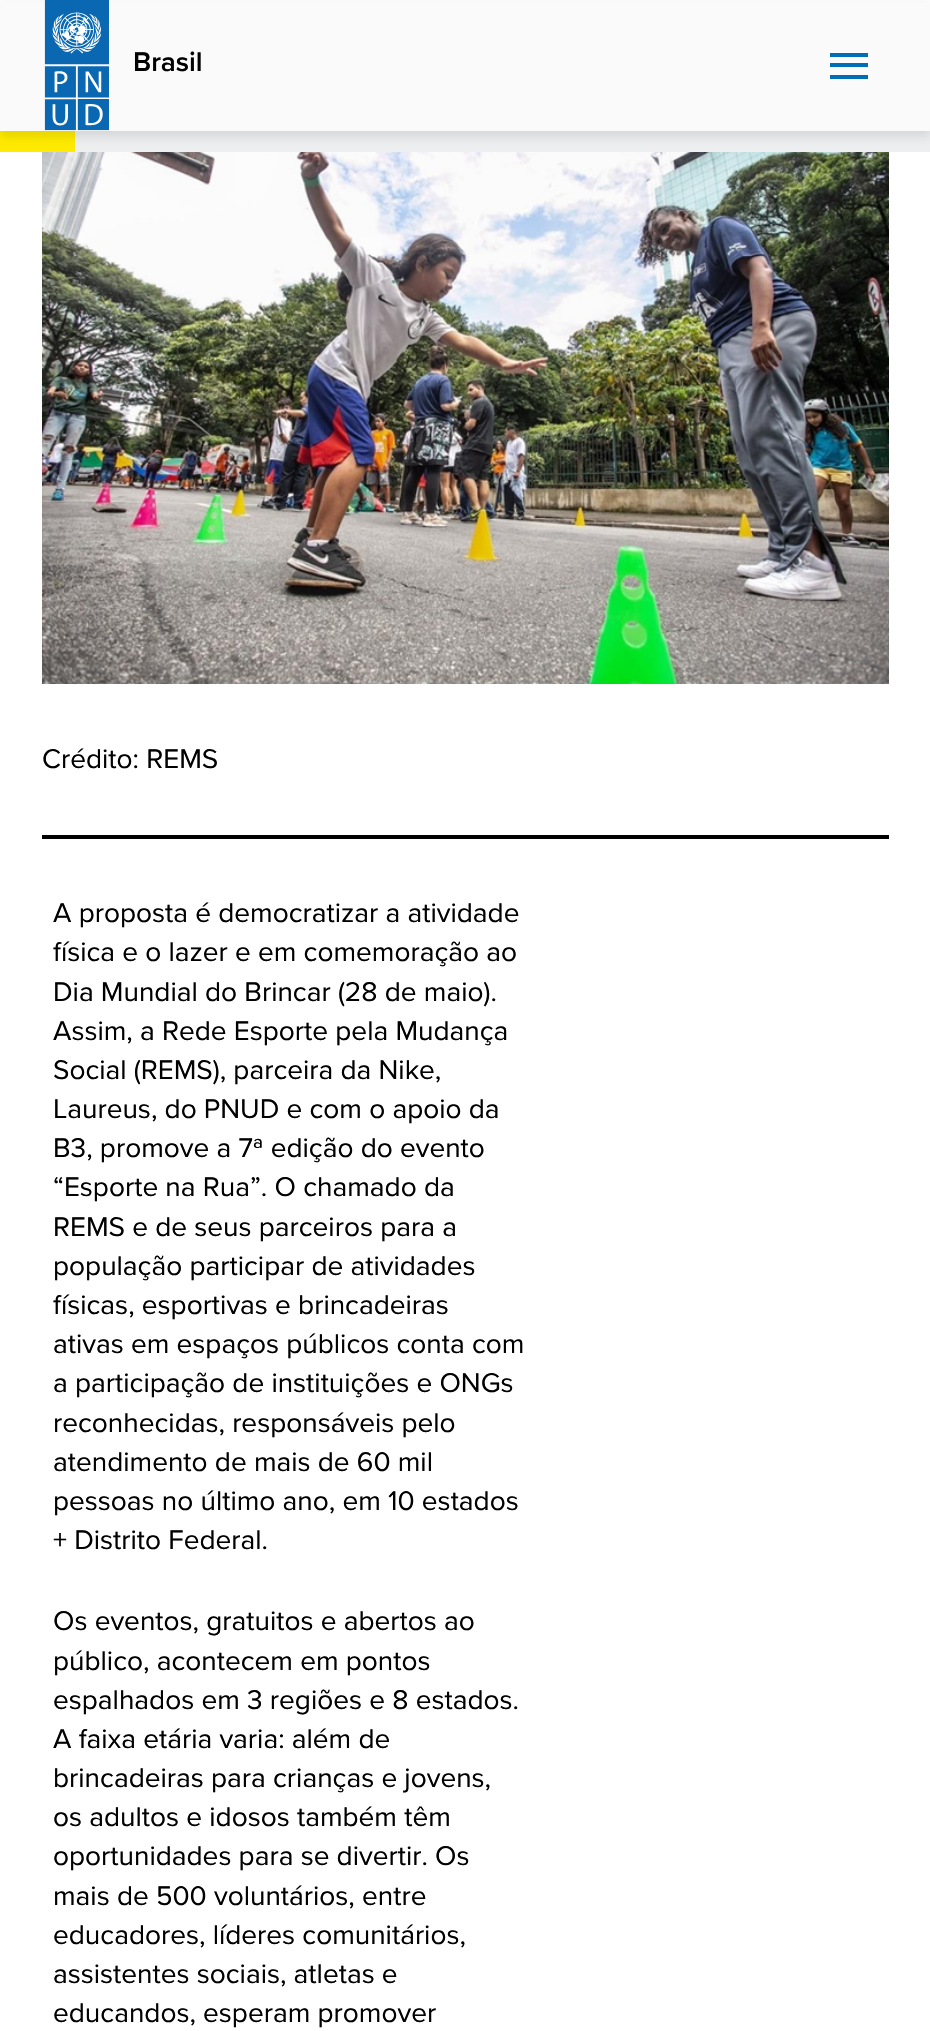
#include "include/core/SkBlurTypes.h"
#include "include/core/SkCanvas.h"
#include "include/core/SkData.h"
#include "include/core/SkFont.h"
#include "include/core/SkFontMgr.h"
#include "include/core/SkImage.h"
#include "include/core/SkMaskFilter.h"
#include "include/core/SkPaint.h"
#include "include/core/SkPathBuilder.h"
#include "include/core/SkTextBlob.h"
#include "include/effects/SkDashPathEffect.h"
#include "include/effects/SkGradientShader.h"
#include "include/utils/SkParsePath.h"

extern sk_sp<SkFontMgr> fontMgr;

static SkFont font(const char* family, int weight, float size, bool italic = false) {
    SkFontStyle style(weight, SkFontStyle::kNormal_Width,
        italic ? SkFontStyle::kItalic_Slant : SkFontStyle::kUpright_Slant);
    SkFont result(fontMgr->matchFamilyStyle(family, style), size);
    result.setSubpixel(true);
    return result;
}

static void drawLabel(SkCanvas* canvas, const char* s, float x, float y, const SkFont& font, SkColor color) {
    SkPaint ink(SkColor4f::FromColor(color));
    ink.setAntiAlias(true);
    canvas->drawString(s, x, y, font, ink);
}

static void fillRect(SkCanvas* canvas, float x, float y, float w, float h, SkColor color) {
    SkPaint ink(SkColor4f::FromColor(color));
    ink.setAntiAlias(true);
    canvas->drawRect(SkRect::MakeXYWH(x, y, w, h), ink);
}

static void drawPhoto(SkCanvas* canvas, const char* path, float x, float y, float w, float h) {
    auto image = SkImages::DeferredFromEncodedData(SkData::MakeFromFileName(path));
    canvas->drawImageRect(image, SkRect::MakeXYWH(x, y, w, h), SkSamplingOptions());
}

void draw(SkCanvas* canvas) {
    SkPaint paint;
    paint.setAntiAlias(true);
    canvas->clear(0xFFFFFFFF);
    fillRect(canvas, 75, 131, 855, 21, 0xFFEDEFF0);
    fillRect(canvas, 0, 131, 75, 21, 0xFFFFEB00);
    drawPhoto(canvas, "assets/img2.png", 42, 152, 847, 532);
    paint.setColor(0x1A000000);
    paint.setMaskFilter(SkMaskFilter::MakeBlur(kNormal_SkBlurStyle, 5));
    canvas->drawRect(SkRect::MakeXYWH(0, 5, 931, 132), paint);
    paint.setMaskFilter(nullptr);
    fillRect(canvas, 0, 2, 930, 129, 0xFFFAFAFA);
    drawPhoto(canvas, "assets/img1.png", 44, 0, 65, 131);
    SkFont font1 = font("Proxima Nova", 600, 28);
    drawLabel(canvas, "Brasil", 133, 71, font1, 0xFF000000);
    fillRect(canvas, 830, 53, 38, 4, 0xFF006EB5);
    fillRect(canvas, 830, 63, 38, 4, 0xFF006EB5);
    fillRect(canvas, 830, 75, 38, 4, 0xFF006EB5);
    fillRect(canvas, 42, 835, 847, 4, 0xFF000000);
    SkFont font2 = font("Proxima Nova", 400, 28);
    drawLabel(canvas, "Crédito: REMS", 42, 768, font2, 0xFF000000);
    drawLabel(canvas, "A proposta é democratizar a atividade", 53, 922, font2, 0xFF000000);
    drawLabel(canvas, "física e o lazer e em comemoração ao", 53, 961, font2, 0xFF000000);
    drawLabel(canvas, "Dia Mundial do Brincar (28 de maio).", 53, 1001, font2, 0xFF000000);
    drawLabel(canvas, "Assim, a Rede Esporte pela Mudança", 53, 1040, font2, 0xFF000000);
    drawLabel(canvas, "Social (REMS), parceira da Nike,", 53, 1079, font2, 0xFF000000);
    drawLabel(canvas, "Laureus, do PNUD e com o apoio da", 53, 1118, font2, 0xFF000000);
    drawLabel(canvas, "B3, promove a 7ª edição do evento", 53, 1157, font2, 0xFF000000);
    drawLabel(canvas, "“Esporte na Rua”. O chamado da", 53, 1196, font2, 0xFF000000);
    drawLabel(canvas, "REMS e de seus parceiros para a", 53, 1236, font2, 0xFF000000);
    drawLabel(canvas, "população participar de atividades", 53, 1275, font2, 0xFF000000);
    drawLabel(canvas, "físicas, esportivas e brincadeiras", 53, 1314, font2, 0xFF000000);
    drawLabel(canvas, "ativas em espaços públicos conta com", 53, 1353, font2, 0xFF000000);
    drawLabel(canvas, "a participação de instituições e ONGs", 53, 1392, font2, 0xFF000000);
    drawLabel(canvas, "reconhecidas, responsáveis pelo", 53, 1432, font2, 0xFF000000);
    drawLabel(canvas, "atendimento de mais de 60 mil", 53, 1471, font2, 0xFF000000);
    drawLabel(canvas, "pessoas no último ano, em 10 estados", 53, 1510, font2, 0xFF000000);
    drawLabel(canvas, "+ Distrito Federal.", 53, 1549, font2, 0xFF000000);
    drawLabel(canvas, "Os eventos, gratuitos e abertos ao", 53, 1630, font2, 0xFF000000);
    drawLabel(canvas, "público, acontecem em pontos", 53, 1670, font2, 0xFF000000);
    drawLabel(canvas, "espalhados em 3 regiões e 8 estados.", 53, 1709, font2, 0xFF000000);
    drawLabel(canvas, "A faixa etária varia: além de", 53, 1748, font2, 0xFF000000);
    drawLabel(canvas, "brincadeiras para crianças e jovens,", 53, 1787, font2, 0xFF000000);
    drawLabel(canvas, "os adultos e idosos também têm", 53, 1826, font2, 0xFF000000);
    drawLabel(canvas, "oportunidades para se divertir. Os", 53, 1865, font2, 0xFF000000);
    drawLabel(canvas, "mais de 500 voluntários, entre", 53, 1905, font2, 0xFF000000);
    drawLabel(canvas, "educadores, líderes comunitários,", 53, 1944, font2, 0xFF000000);
    drawLabel(canvas, "assistentes sociais, atletas e", 53, 1983, font2, 0xFF000000);
    drawLabel(canvas, "educandos, esperam promover", 53, 2022, font2, 0xFF000000);
}
